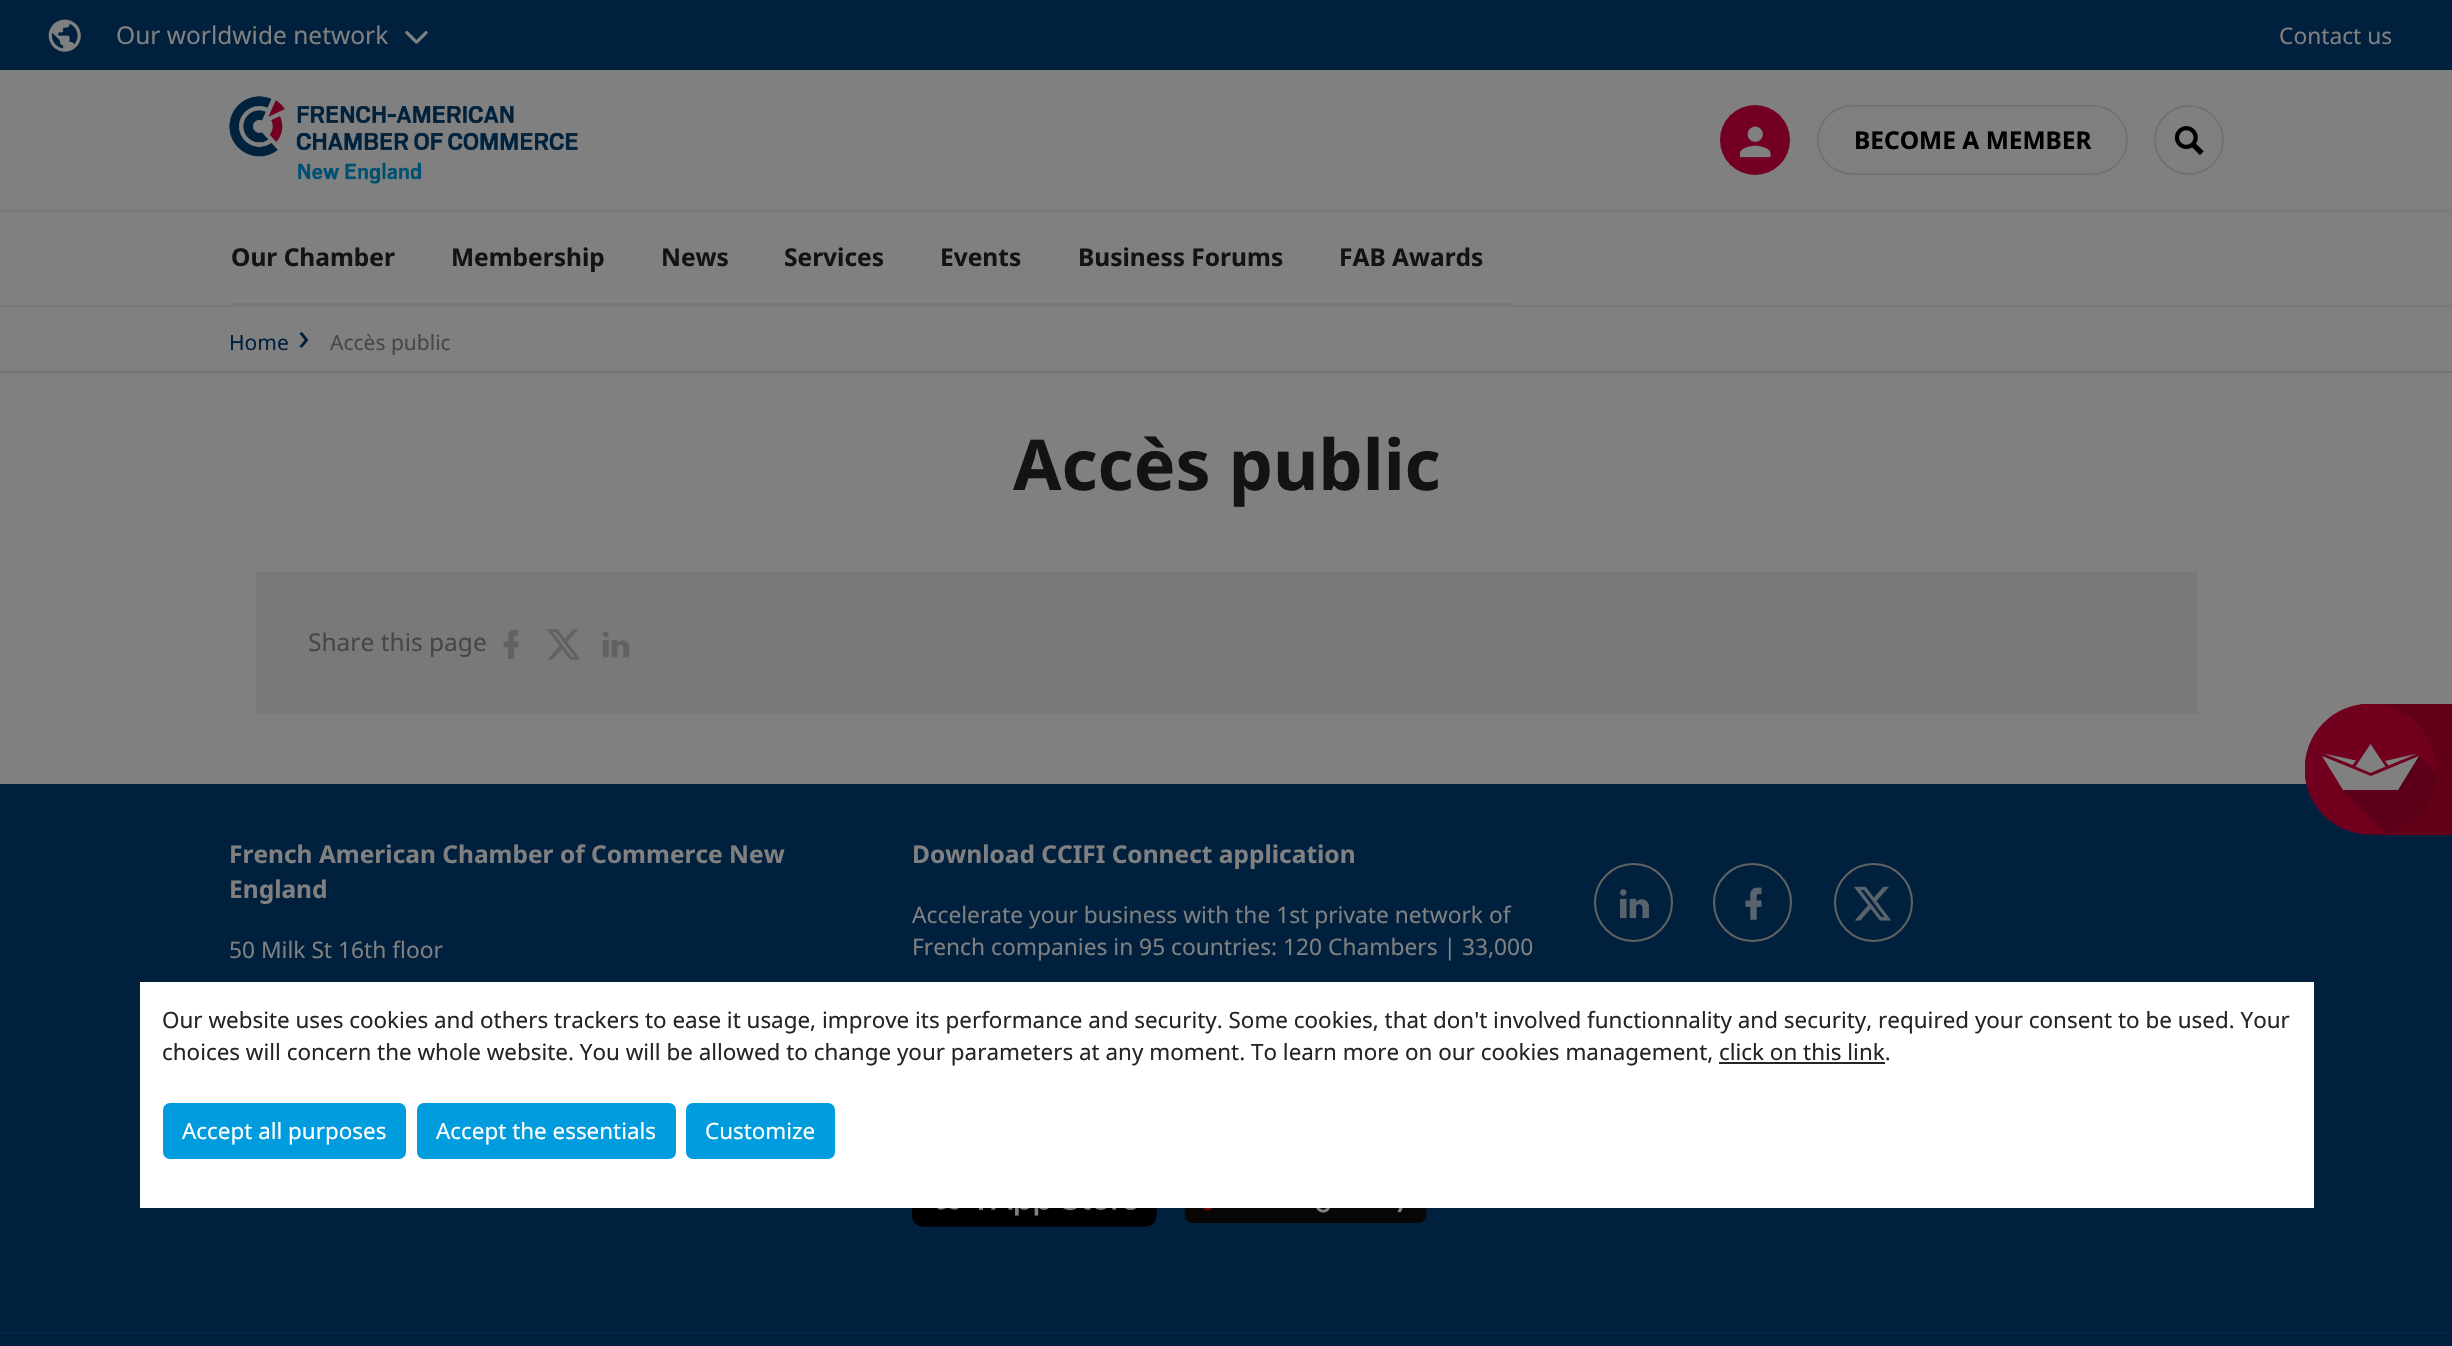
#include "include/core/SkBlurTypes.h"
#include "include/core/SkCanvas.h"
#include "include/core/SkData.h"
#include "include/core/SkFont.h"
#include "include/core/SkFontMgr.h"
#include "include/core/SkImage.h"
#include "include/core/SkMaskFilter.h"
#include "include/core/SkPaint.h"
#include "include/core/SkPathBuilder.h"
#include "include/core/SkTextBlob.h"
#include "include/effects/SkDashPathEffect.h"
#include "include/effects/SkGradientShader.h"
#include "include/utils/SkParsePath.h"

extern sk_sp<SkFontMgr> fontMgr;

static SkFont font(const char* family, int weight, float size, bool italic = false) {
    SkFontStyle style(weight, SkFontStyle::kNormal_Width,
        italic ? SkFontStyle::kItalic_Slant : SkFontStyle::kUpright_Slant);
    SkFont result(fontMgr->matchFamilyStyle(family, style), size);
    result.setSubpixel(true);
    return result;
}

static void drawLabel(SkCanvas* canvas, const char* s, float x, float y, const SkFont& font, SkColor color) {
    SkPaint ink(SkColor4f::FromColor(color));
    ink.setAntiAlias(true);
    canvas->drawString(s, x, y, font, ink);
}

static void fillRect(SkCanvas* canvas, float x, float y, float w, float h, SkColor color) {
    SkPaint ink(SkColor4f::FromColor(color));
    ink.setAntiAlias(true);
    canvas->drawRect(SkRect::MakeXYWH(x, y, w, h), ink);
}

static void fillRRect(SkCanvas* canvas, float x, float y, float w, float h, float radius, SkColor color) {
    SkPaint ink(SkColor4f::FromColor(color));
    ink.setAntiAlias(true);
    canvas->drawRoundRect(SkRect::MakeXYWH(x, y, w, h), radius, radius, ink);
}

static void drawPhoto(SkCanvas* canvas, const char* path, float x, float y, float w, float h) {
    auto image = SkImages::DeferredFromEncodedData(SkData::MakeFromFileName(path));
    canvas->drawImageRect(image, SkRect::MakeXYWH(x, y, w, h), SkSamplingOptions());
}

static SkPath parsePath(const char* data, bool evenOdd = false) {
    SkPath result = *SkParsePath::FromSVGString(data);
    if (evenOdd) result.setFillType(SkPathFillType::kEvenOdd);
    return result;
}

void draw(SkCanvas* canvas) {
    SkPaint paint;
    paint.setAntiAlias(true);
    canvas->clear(0xFF808080);
    fillRect(canvas, 0, 305, 2452, 2, 0xFF797979);
    fillRect(canvas, 0, 0, 2452, 70, 0xFF00203D);
    drawPhoto(canvas, "assets/img1.png", 48, 19, 33, 33);
    SkFont font1 = font("Noto Sans", 400, 24.5f);
    drawLabel(canvas, "Our worldwide network", 116, 44, font1, 0xFF808080);
    drawPhoto(canvas, "assets/img2.png", 405, 31, 23, 13);
    SkFont font2 = font("Noto Sans", 400, 22.75f);
    drawLabel(canvas, "Contact us", 2279, 44, font2, 0xFF808080);
    fillRect(canvas, 0, 784, 2452, 562, 0xFF00203D);
    fillRect(canvas, 2375, 704, 77, 131, 0xFF620018);
    canvas->save();
    canvas->clipRect(SkRect::MakeXYWH(2305, 704, 131, 131));
    paint.setColor(0xFF71001E);
    canvas->drawCircle(2370, 769, 65.5f, paint);
    canvas->restore();
    paint.setColor(0x33000000);
    canvas->drawPath(parsePath("M2343 790L2386 833C2414 826 2434 802 2436 773L2419 756Z"), paint);
    paint.setColor(0xFF808080);
    canvas->drawPath(parsePath("M2417.5 753.5L2385 761L2388.5 765.5Z"), paint);
    canvas->drawPath(parsePath("M2323.5 753.5L2356 760.5L2352.5 765Z"), paint);
    canvas->drawPath(parsePath("M2370.5 773L2385.5 766.5L2370.5 744L2355.5 766.5Z"), paint);
    canvas->drawPath(parsePath("M2371 776L2322 756L2343 790H2398L2419 756Z"), paint);
    fillRect(canvas, 0, 210, 2452, 2, 0xFF797979);
    drawPhoto(canvas, "assets/img3.png", 229, 96, 349, 88);
    paint.setColor(0xFF730023);
    canvas->drawCircle(1755, 140, 35, paint);
    drawPhoto(canvas, "assets/img4.png", 1740, 126, 31, 32);
    paint.setStroke(true);
    paint.setStrokeWidth(2);
    paint.setColor(0xFF727272);
    canvas->drawRoundRect(SkRect::MakeXYWH(1818, 106, 309, 68), 34, 34, paint);
    SkFont font3 = font("Noto Sans", 700, 24.5f);
    drawLabel(canvas, "BECOME A MEMBER", 1854, 149, font3, 0xFF000000);
    canvas->drawCircle(2189, 140, 34, paint);
    drawPhoto(canvas, "assets/img5.png", 2174, 126, 30, 29);
    fillRect(canvas, 229, 303, 1283, 2, 0xFF797979);
    drawLabel(canvas, "Our Chamber", 231, 266, font3, 0xFF131313);
    drawLabel(canvas, "Membership", 451, 266, font3, 0xFF131313);
    drawLabel(canvas, "News", 661, 266, font3, 0xFF131313);
    drawLabel(canvas, "Services", 784, 266, font3, 0xFF131313);
    drawLabel(canvas, "Events", 940, 266, font3, 0xFF131313);
    drawLabel(canvas, "Business Forums", 1078, 266, font3, 0xFF131313);
    drawLabel(canvas, "FAB Awards", 1339, 266, font3, 0xFF131313);
    fillRect(canvas, 0, 371, 2452, 2, 0xFF727272);
    SkFont font4 = font("Noto Sans", 400, 21);
    drawLabel(canvas, "Home", 229, 350, font4, 0xFF00203D);
    SkFont font5 = font("Noto Sans", 400, 38);
    drawLabel(canvas, "›", 298, 350, font5, 0xFF00203D);
    drawLabel(canvas, "Accès public", 330, 350, font4, 0xFF474747);
    SkFont font6 = font("Noto Sans", 700, 70);
    drawLabel(canvas, "Accès public", 1013, 490, font6, 0xFF131313);
    fillRect(canvas, 256, 572, 1942, 142, 0xFF797979);
    drawLabel(canvas, "Share this page", 308, 651, font1, 0xFF474747);
    drawPhoto(canvas, "assets/img6.png", 503, 629, 16, 30);
    drawPhoto(canvas, "assets/img7.png", 546, 629, 35, 31);
    drawPhoto(canvas, "assets/img8.png", 602, 631, 28, 27);
    drawLabel(canvas, "French American Chamber of Commerce New", 229, 863, font3, 0xFF808080);
    drawLabel(canvas, "England", 229, 898, font3, 0xFF808080);
    drawLabel(canvas, "50 Milk St 16th floor", 229, 958, font2, 0xFF808080);
    drawLabel(canvas, "Download CCIFI Connect application", 912, 863, font3, 0xFF808080);
    drawLabel(canvas, "Accelerate your business with the 1st private network of", 912, 923, font2, 0xFF808080);
    drawLabel(canvas, "French companies in 95 countries: 120 Chambers | 33,000", 912, 955, font2, 0xFF808080);
    drawPhoto(canvas, "assets/img9.png", 912, 1208, 245, 19);
    drawPhoto(canvas, "assets/img10.png", 1184, 1208, 243, 15);
    paint.setColor(0xFF616262);
    canvas->drawCircle(1633.5f, 902.5f, 38.5f, paint);
    drawPhoto(canvas, "assets/img11.png", 1620, 889, 29, 30);
    canvas->drawCircle(1752.5f, 902.5f, 38.5f, paint);
    drawPhoto(canvas, "assets/img12.png", 1745, 887, 17, 33);
    canvas->drawCircle(1873.5f, 902.5f, 38.5f, paint);
    drawPhoto(canvas, "assets/img13.png", 1854, 886, 38, 35);
    fillRect(canvas, 0, 1332, 2452, 2, 0xFF00274A);
    fillRect(canvas, 140, 982, 2174, 226, 0xFFFFFFFF);
    SkFont font7 = font("Noto Sans", 400, 22.4f);
    drawLabel(canvas, "Our website uses cookies and others trackers to ease it usage, improve its performance and security. Some cookies, that don't involved functionnality and security, required your consent to be used. Your", 162, 1028, font7, 0xFF252525);
    drawLabel(canvas, "choices will concern the whole website. You will be allowed to change your parameters at any moment. To learn more on our cookies management,", 162, 1060, font7, 0xFF252525);
    drawLabel(canvas, "click on this link.", 1719, 1060, font7, 0xFF252525);
    fillRect(canvas, 1719, 1062, 166, 2, 0xFF252525);
    fillRRect(canvas, 163, 1103, 243, 56, 7, 0xFF009CDE);
    drawLabel(canvas, "Accept all purposes", 182, 1139, font7, 0xFFFFFFFF);
    fillRRect(canvas, 417, 1103, 259, 56, 7, 0xFF009CDE);
    drawLabel(canvas, "Accept the essentials", 436, 1139, font7, 0xFFFFFFFF);
    fillRRect(canvas, 686, 1103, 149, 56, 7, 0xFF009CDE);
    drawLabel(canvas, "Customize", 705, 1139, font7, 0xFFFFFFFF);
}
